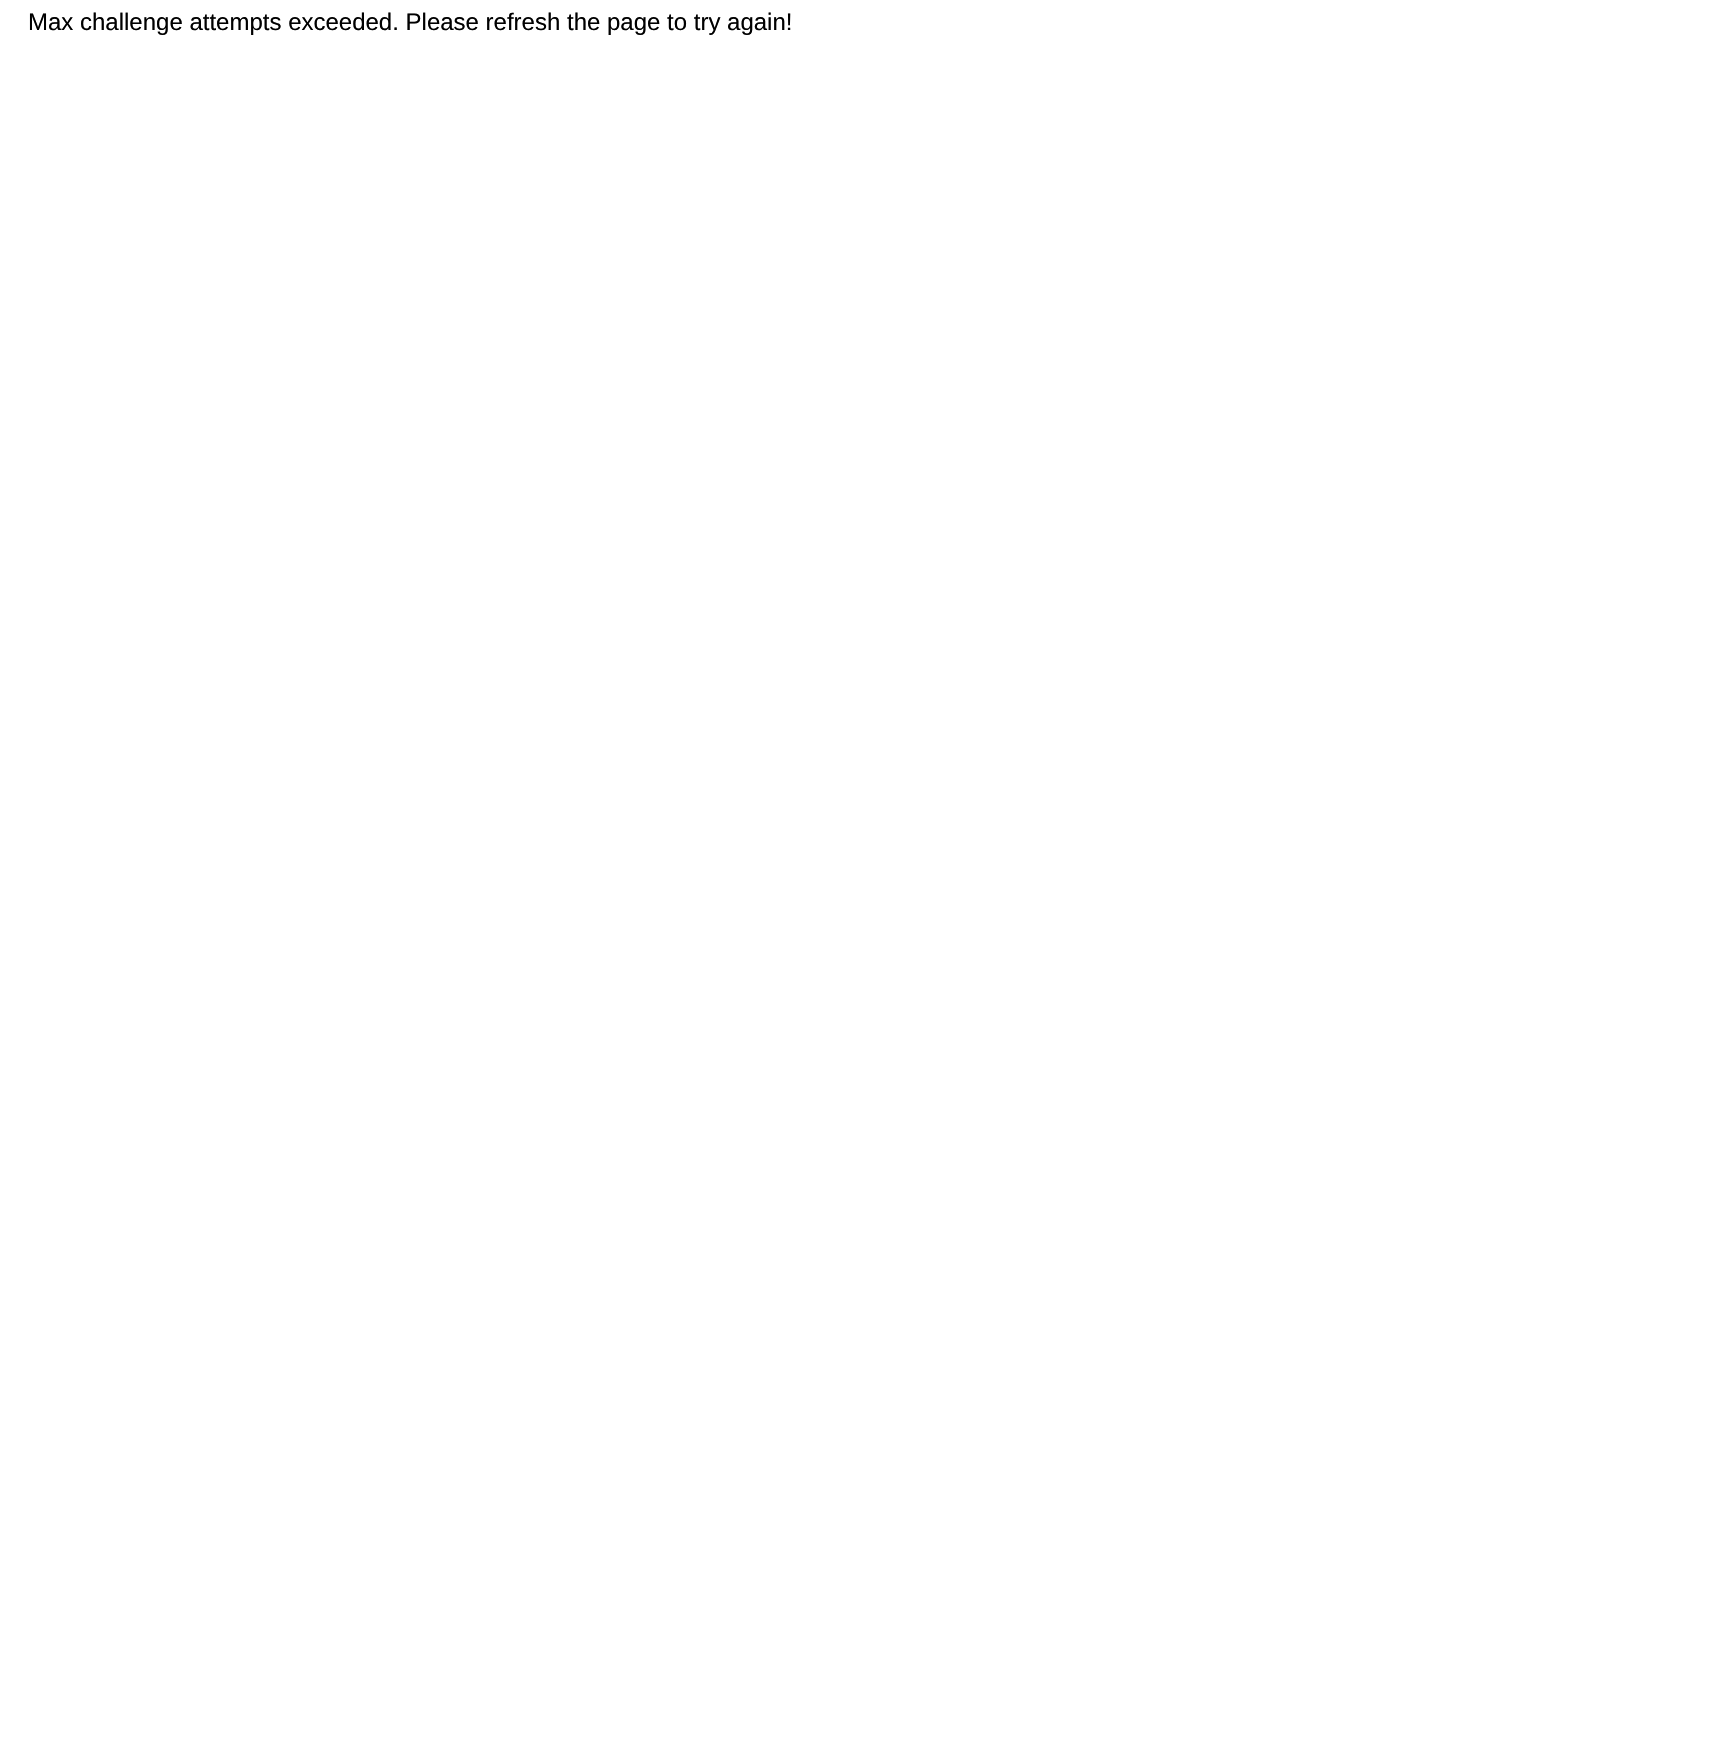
#include "include/core/SkBlurTypes.h"
#include "include/core/SkCanvas.h"
#include "include/core/SkData.h"
#include "include/core/SkFont.h"
#include "include/core/SkFontMgr.h"
#include "include/core/SkImage.h"
#include "include/core/SkMaskFilter.h"
#include "include/core/SkPaint.h"
#include "include/core/SkPathBuilder.h"
#include "include/core/SkTextBlob.h"
#include "include/effects/SkDashPathEffect.h"
#include "include/effects/SkGradientShader.h"
#include "include/utils/SkParsePath.h"

extern sk_sp<SkFontMgr> fontMgr;

static SkFont font(const char* family, int weight, float size, bool italic = false) {
    SkFontStyle style(weight, SkFontStyle::kNormal_Width,
        italic ? SkFontStyle::kItalic_Slant : SkFontStyle::kUpright_Slant);
    SkFont result(fontMgr->matchFamilyStyle(family, style), size);
    result.setSubpixel(true);
    return result;
}

static void drawLabel(SkCanvas* canvas, const char* s, float x, float y, const SkFont& font, SkColor color) {
    SkPaint ink(SkColor4f::FromColor(color));
    ink.setAntiAlias(true);
    canvas->drawString(s, x, y, font, ink);
}

void draw(SkCanvas* canvas) {
    SkPaint paint;
    paint.setAntiAlias(true);
    canvas->clear(0xFFFFFFFF);
    SkFont font1 = font("Liberation Sans", 400, 24);
    drawLabel(canvas, "Max challenge attempts exceeded. Please refresh the page to try again!", 28, 30, font1, 0xFF000000);
}
